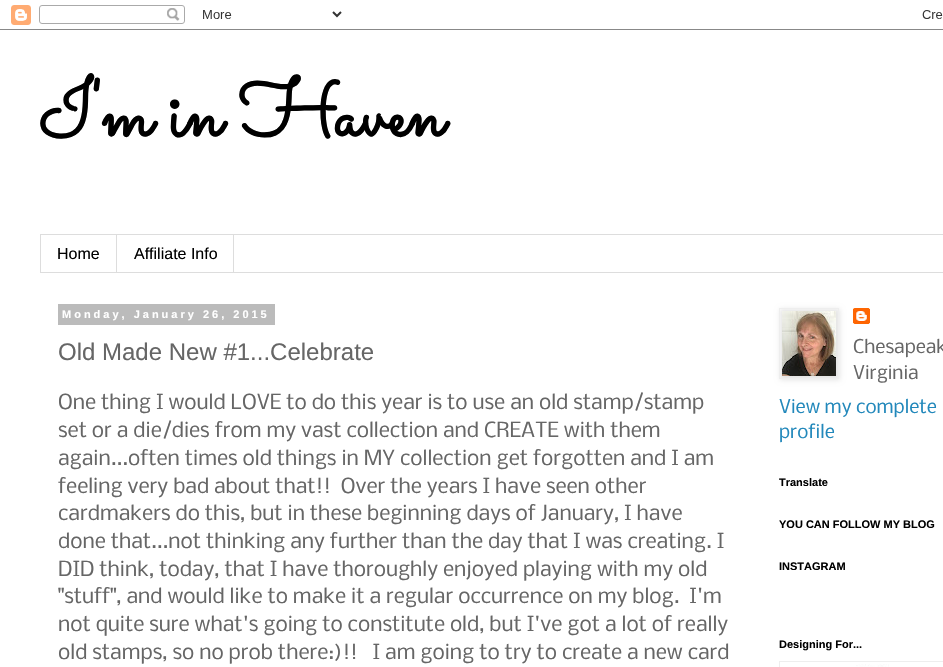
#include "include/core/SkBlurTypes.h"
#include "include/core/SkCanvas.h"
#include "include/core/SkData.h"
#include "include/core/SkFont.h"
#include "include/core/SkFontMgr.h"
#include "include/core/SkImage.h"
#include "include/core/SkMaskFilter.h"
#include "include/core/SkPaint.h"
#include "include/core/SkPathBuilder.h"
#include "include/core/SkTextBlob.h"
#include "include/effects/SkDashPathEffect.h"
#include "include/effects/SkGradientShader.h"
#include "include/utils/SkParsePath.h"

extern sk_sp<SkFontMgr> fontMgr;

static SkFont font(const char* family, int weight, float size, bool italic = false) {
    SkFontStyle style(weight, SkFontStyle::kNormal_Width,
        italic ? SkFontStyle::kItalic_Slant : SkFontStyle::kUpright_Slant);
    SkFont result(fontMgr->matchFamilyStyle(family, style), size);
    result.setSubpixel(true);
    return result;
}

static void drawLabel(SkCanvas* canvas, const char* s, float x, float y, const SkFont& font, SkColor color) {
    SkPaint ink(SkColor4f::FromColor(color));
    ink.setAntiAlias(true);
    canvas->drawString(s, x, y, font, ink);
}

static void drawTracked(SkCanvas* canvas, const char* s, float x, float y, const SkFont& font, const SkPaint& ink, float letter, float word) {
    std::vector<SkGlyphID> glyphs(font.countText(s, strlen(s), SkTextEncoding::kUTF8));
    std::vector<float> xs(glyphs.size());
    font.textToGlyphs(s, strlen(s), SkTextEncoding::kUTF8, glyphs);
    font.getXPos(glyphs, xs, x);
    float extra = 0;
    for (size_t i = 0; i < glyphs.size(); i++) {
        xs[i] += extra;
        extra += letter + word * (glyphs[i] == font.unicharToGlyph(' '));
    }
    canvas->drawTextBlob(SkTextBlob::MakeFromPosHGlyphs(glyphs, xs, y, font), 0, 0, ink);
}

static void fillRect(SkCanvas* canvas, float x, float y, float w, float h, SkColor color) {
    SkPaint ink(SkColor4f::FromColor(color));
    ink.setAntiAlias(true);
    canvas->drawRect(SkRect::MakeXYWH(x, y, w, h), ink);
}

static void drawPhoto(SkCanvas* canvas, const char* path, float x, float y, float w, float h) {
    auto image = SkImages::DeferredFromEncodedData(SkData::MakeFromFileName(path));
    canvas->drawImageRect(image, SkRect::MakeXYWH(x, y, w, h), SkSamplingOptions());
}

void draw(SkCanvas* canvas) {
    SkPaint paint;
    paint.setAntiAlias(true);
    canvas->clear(0xFFFFFFFF);
    drawPhoto(canvas, "assets/img1.png", 0, 5, 943, 25);
    SkFont font1 = font("Sacramento", 700, 80);
    drawLabel(canvas, "I'm in Haven", 40, 136, font1, 0xFF000000);
    paint.setStroke(true);
    paint.setStrokeWidth(1);
    paint.setColor(0xFFDDDDDD);
    canvas->drawRect(SkRect::MakeXYWH(40.5f, 234.5f, 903, 38), paint);
    fillRect(canvas, 116, 235, 1, 37, 0xFFDDDDDD);
    SkFont font2 = font("Liberation Sans", 400, 16);
    drawLabel(canvas, "Home", 57, 259, font2, 0xFF000000);
    fillRect(canvas, 233, 235, 1, 37, 0xFFDDDDDD);
    drawLabel(canvas, "Affiliate Info", 134, 259, font2, 0xFF000000);
    fillRect(canvas, 58, 304, 217, 21, 0xFFBBBBBB);
    SkFont font3 = font("Liberation Sans", 700, 11);
    paint.setStroke(false);
    paint.setColor(0xFFFFFFFF);
    drawTracked(canvas, "Monday, January 26, 2015", 62, 318, font3, paint, 3, 0);
    SkFont font4 = font("Liberation Sans", 400, 24);
    drawLabel(canvas, "Old Made New #1...Celebrate", 58, 360, font4, 0xFF666666);
    SkFont font5 = font("Nobile", 400, 19.8f);
    drawLabel(canvas, "One thing I would LOVE to do this year is to use an old stamp/stamp", 58, 409, font5, 0xFF666666);
    drawLabel(canvas, "set or a die/dies from my vast collection and CREATE with them", 58, 437, font5, 0xFF666666);
    drawLabel(canvas, "again...often times old things in MY collection get forgotten and I am", 58, 465, font5, 0xFF666666);
    drawLabel(canvas, "feeling very bad about that!!  Over the years I have seen other", 58, 493, font5, 0xFF666666);
    drawLabel(canvas, "cardmakers do this, but in these beginning days of January, I have", 58, 520, font5, 0xFF666666);
    drawLabel(canvas, "done that...not thinking any further than the day that I was creating. I", 58, 548, font5, 0xFF666666);
    drawLabel(canvas, "DID think, today, that I have thoroughly enjoyed playing with my old", 58, 576, font5, 0xFF666666);
    drawLabel(canvas, "\"stuff\", and would like to make it a regular occurrence on my blog.  I'm", 58, 603, font5, 0xFF666666);
    drawLabel(canvas, "not quite sure what's going to constitute old, but I've got a lot of really", 58, 631, font5, 0xFF666666);
    drawLabel(canvas, "old stamps, so no prob there:)!!   I am going to try to create a new card", 58, 659, font5, 0xFF666666);
    paint.setColor(0x1A000000);
    paint.setMaskFilter(SkMaskFilter::MakeBlur(kNormal_SkBlurStyle, 2.5f));
    canvas->drawRect(SkRect::MakeXYWH(780, 309, 60, 71), paint);
    paint.setMaskFilter(nullptr);
    paint.setStroke(true);
    paint.setColor(0xFFEEEEEE);
    canvas->drawRect(SkRect::MakeXYWH(779.5f, 308.5f, 59, 70), paint);
    drawPhoto(canvas, "assets/img2.png", 782, 311, 54, 65);
    drawPhoto(canvas, "assets/img3.png", 853, 308, 17, 16);
    SkFont font6 = font("Nobile", 400, 18);
    drawLabel(canvas, "Chesapeak", 853, 353, font6, 0xFF666666);
    drawLabel(canvas, "Virginia", 853, 379, font6, 0xFF666666);
    drawLabel(canvas, "View my complete", 779, 413, font6, 0xFF2288BB);
    drawLabel(canvas, "profile", 779, 438, font6, 0xFF2288BB);
    drawLabel(canvas, "Translate", 779, 486, font3, 0xFF000000);
    drawLabel(canvas, "YOU CAN FOLLOW MY BLOG", 779, 528, font3, 0xFF000000);
    drawLabel(canvas, "INSTAGRAM", 779, 570, font3, 0xFF000000);
    drawLabel(canvas, "Designing For...", 779, 648, font3, 0xFF000000);
    canvas->drawRect(SkRect::MakeXYWH(779.5f, 661.5f, 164, 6), paint);
    drawPhoto(canvas, "assets/img4.png", 856, 664, 33, 3);
}
